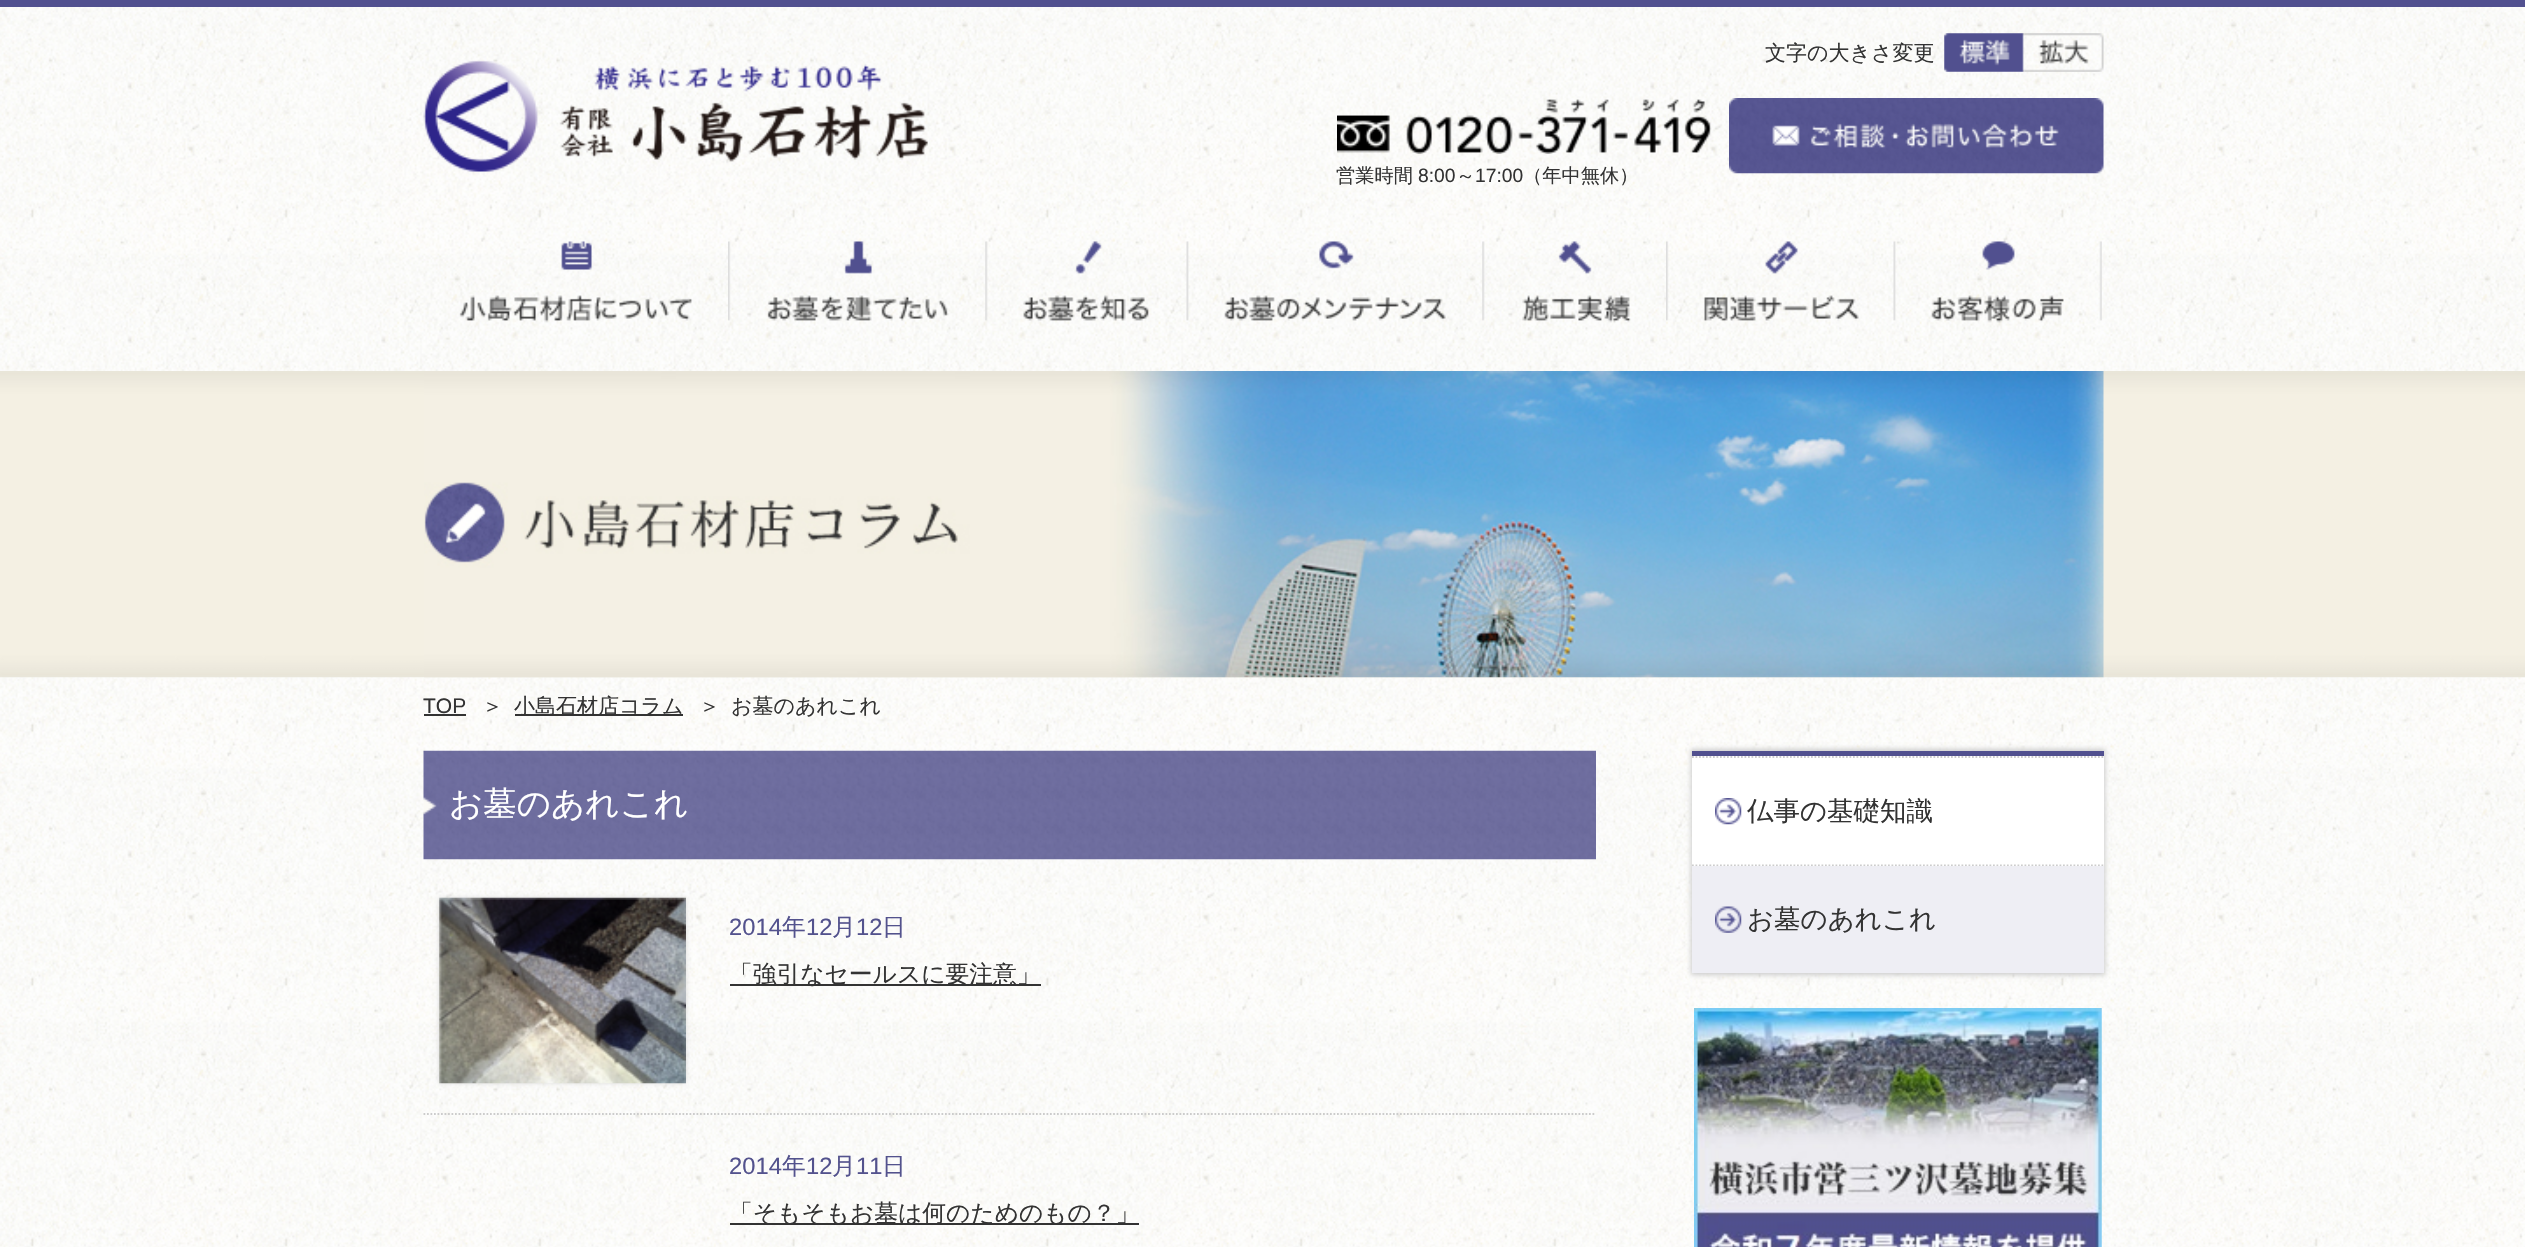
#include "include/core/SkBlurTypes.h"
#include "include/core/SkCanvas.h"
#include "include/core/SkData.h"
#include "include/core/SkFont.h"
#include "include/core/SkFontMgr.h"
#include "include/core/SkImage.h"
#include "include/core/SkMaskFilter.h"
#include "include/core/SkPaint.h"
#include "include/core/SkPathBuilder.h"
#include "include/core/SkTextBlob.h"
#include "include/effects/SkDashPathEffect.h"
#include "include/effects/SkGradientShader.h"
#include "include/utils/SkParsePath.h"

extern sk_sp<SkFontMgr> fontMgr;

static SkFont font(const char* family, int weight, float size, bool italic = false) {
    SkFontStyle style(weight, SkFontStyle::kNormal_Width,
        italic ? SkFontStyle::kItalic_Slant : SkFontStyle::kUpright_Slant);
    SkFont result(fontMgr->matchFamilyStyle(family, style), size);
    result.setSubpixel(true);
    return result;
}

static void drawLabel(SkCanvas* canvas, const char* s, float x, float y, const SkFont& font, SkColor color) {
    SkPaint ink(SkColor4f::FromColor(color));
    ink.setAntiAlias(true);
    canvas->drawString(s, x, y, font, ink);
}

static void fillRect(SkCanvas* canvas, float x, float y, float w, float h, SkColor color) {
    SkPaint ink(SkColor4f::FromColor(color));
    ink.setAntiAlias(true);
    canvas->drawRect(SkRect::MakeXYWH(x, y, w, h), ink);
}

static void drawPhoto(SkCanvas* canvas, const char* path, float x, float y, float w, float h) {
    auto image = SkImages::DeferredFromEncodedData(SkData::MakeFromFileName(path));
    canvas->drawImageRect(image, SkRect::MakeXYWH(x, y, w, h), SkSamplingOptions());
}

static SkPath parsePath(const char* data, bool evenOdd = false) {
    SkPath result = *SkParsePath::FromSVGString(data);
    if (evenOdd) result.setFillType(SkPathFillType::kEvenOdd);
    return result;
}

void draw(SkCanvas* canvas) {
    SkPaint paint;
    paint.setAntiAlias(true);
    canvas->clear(0xFFFFFFFF);
    drawPhoto(canvas, "assets/img1.png", 0, 7, 2525, 1240);
    fillRect(canvas, 0, 0, 2525, 7, 0xFF51508F);
    drawPhoto(canvas, "assets/img2.png", 423, 60, 505, 112);
    SkFont font1 = font("WenQuanYi Zen Hei", 500, 21);
    drawLabel(canvas, "文字の大きさ変更", 1765, 60, font1, 0xFF333333);
    drawPhoto(canvas, "assets/img3.png", 1944, 33, 81, 39);
    drawPhoto(canvas, "assets/img4.png", 2024, 33, 80, 39);
    drawPhoto(canvas, "assets/img5.png", 1729, 98, 375, 76);
    drawPhoto(canvas, "assets/img6.png", 1337, 99, 375, 55);
    SkFont font2 = font("WenQuanYi Zen Hei", 500, 19.25f);
    drawLabel(canvas, "営業時間", 1336, 182, font2, 0xFF333333);
    SkFont font3 = font("Liberation Sans", 400, 19.25f);
    drawLabel(canvas, "8:00", 1418, 182, font3, 0xFF333333);
    drawLabel(canvas, "～", 1456, 182, font2, 0xFF333333);
    drawLabel(canvas, "17:00", 1475, 182, font3, 0xFF333333);
    drawLabel(canvas, "（年中無休）", 1523, 182, font2, 0xFF333333);
    drawPhoto(canvas, "assets/img7.png", 459, 241, 233, 82);
    drawPhoto(canvas, "assets/img8.png", 728, 241, 221, 80);
    drawPhoto(canvas, "assets/img9.png", 985, 241, 164, 80);
    drawPhoto(canvas, "assets/img10.png", 1186, 241, 260, 80);
    drawPhoto(canvas, "assets/img11.png", 1482, 241, 149, 82);
    drawPhoto(canvas, "assets/img12.png", 1666, 241, 193, 80);
    drawPhoto(canvas, "assets/img13.png", 1893, 241, 209, 82);
    drawPhoto(canvas, "assets/img14.png", 0, 371, 2525, 307);
    drawPhoto(canvas, "assets/img15.png", 424, 371, 1680, 307);
    SkFont font4 = font("Liberation Sans", 400, 21);
    drawLabel(canvas, "TOP", 423, 713, font4, 0xFF333333);
    fillRect(canvas, 424, 714, 42, 2, 0xFF333333);
    drawLabel(canvas, "＞", 482, 713, font1, 0xFF333333);
    fillRect(canvas, 515, 714, 168, 2, 0xFF333333);
    drawLabel(canvas, "小島石材店コラム", 514, 713, font1, 0xFF333333);
    drawLabel(canvas, "＞", 699, 713, font1, 0xFF333333);
    drawLabel(canvas, "お墓のあれこれ", 731, 713, font1, 0xFF333333);
    drawPhoto(canvas, "assets/img16.png", 423, 750, 1173, 110);
    SkFont font5 = font("WenQuanYi Zen Hei", 500, 33.5f);
    drawLabel(canvas, "お墓のあれこれ", 449, 815, font5, 0xFFFFFFFF);
    paint.setStroke(true);
    paint.setStrokeWidth(1.8f);
    paint.setColor(0xFFCCCCCC);
    paint.setPathEffect(SkDashPathEffect::Make({{1.75f, 1.75f}}, 0));
    canvas->drawPath(parsePath("M423.5 1114H1596"), paint);
    paint.setPathEffect(nullptr);
    canvas->save();
    canvas->clipPath(parsePath("M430 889H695V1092H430ZM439 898H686V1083H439Z", true), true);
    paint.setStroke(false);
    paint.setColor(0xFFDBDBDB);
    paint.setMaskFilter(SkMaskFilter::MakeBlur(kNormal_SkBlurStyle, 2.5f));
    canvas->drawRect(SkRect::MakeXYWH(439, 898, 247, 185), paint);
    paint.setMaskFilter(nullptr);
    canvas->restore();
    drawPhoto(canvas, "assets/img17.png", 439, 897, 247, 187);
    SkFont font6 = font("Liberation Sans", 400, 23.75f);
    drawLabel(canvas, "2014", 729, 935, font6, 0xFF53528D);
    SkFont font7 = font("WenQuanYi Zen Hei", 500, 23.75f);
    drawLabel(canvas, "年", 782, 935, font7, 0xFF53528D);
    drawLabel(canvas, "12", 806, 935, font6, 0xFF53528D);
    drawLabel(canvas, "月", 832, 935, font7, 0xFF53528D);
    drawLabel(canvas, "12", 856, 935, font6, 0xFF53528D);
    drawLabel(canvas, "日", 882, 935, font7, 0xFF53528D);
    fillRect(canvas, 730, 984, 311, 2, 0xFF333333);
    drawLabel(canvas, "「強引なセールスに要注意」", 729, 982, font7, 0xFF333333);
    drawLabel(canvas, "2014", 729, 1174, font6, 0xFF53528D);
    drawLabel(canvas, "年", 782, 1174, font7, 0xFF53528D);
    drawLabel(canvas, "12", 806, 1174, font6, 0xFF53528D);
    drawLabel(canvas, "月", 832, 1174, font7, 0xFF53528D);
    drawLabel(canvas, "11", 856, 1174, font6, 0xFF53528D);
    drawLabel(canvas, "日", 882, 1174, font7, 0xFF53528D);
    fillRect(canvas, 730, 1223, 409, 2, 0xFF333333);
    drawLabel(canvas, "「そもそもお墓は何のためのもの？」", 729, 1221, font7, 0xFF333333);
    paint.setColor(0xFFCCCCCC);
    paint.setMaskFilter(SkMaskFilter::MakeBlur(kNormal_SkBlurStyle, 2.5f));
    canvas->drawRect(SkRect::MakeXYWH(1691, 749, 414, 226), paint);
    paint.setMaskFilter(nullptr);
    fillRect(canvas, 1692, 756, 412, 110, 0xFFFFFFFF);
    fillRect(canvas, 1692, 751, 412, 5, 0xFF51508F);
    paint.setStroke(true);
    paint.setPathEffect(SkDashPathEffect::Make({{1.75f, 1.75f}}, 0));
    canvas->drawPath(parsePath("M1692 757H2103.5"), paint);
    paint.setPathEffect(nullptr);
    drawPhoto(canvas, "assets/img18.png", 1715, 798, 27, 27);
    SkFont font8 = font("WenQuanYi Zen Hei", 500, 26.5f);
    drawLabel(canvas, "仏事の基礎知識", 1747, 820, font8, 0xFF333333);
    paint.setPathEffect(SkDashPathEffect::Make({{1.75f, 1.75f}}, 0));
    canvas->drawPath(parsePath("M1692 865.5H2103.5"), paint);
    paint.setPathEffect(nullptr);
    fillRect(canvas, 1692, 866, 412, 107, 0xFFEEEEF4);
    drawPhoto(canvas, "assets/img19.png", 1715, 906, 27, 27);
    drawLabel(canvas, "お墓のあれこれ", 1747, 928, font8, 0xFF333333);
    drawPhoto(canvas, "assets/img20.png", 1694, 1008, 408, 239);
}
